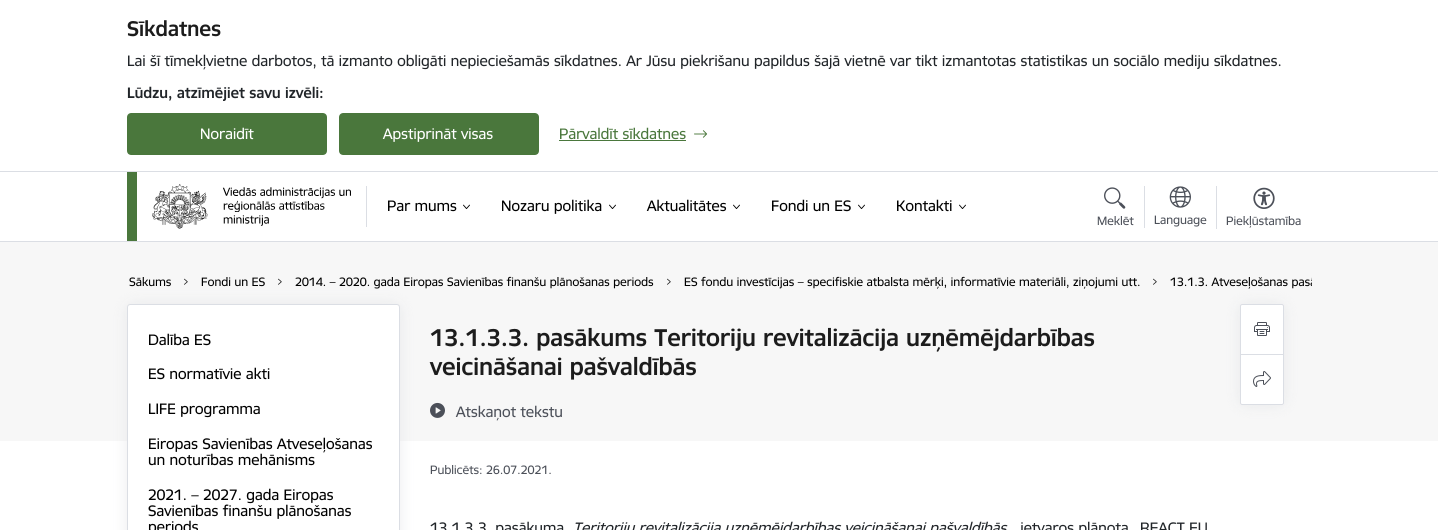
#include "include/core/SkBlurTypes.h"
#include "include/core/SkCanvas.h"
#include "include/core/SkData.h"
#include "include/core/SkFont.h"
#include "include/core/SkFontMgr.h"
#include "include/core/SkImage.h"
#include "include/core/SkMaskFilter.h"
#include "include/core/SkPaint.h"
#include "include/core/SkPathBuilder.h"
#include "include/core/SkTextBlob.h"
#include "include/effects/SkDashPathEffect.h"
#include "include/effects/SkGradientShader.h"
#include "include/utils/SkParsePath.h"

extern sk_sp<SkFontMgr> fontMgr;

static void fillRect(SkCanvas* canvas, float x, float y, float w, float h, SkColor color) {
    SkPaint ink(SkColor4f::FromColor(color));
    ink.setAntiAlias(true);
    canvas->drawRect(SkRect::MakeXYWH(x, y, w, h), ink);
}

static void drawPhoto(SkCanvas* canvas, const char* path, float x, float y, float w, float h) {
    auto image = SkImages::DeferredFromEncodedData(SkData::MakeFromFileName(path));
    canvas->drawImageRect(image, SkRect::MakeXYWH(x, y, w, h), SkSamplingOptions());
}

void draw(SkCanvas* canvas) {
    SkPaint paint;
    paint.setAntiAlias(true);
    canvas->clear(0xFFFFFFFF);
    fillRect(canvas, 0, 171, 1438, 1, 0xFFDBDEE4);
    drawPhoto(canvas, "assets/img1.png", 127, 20, 94, 17);
    drawPhoto(canvas, "assets/img2.png", 128, 54, 1153, 16);
    drawPhoto(canvas, "assets/img3.png", 127, 86, 196, 15);
    paint.setColor(0xFF4A773C);
    canvas->drawRoundRect(SkRect::MakeXYWH(127.5f, 113.5f, 199, 41), 3.5f, 3.5f, paint);
    paint.setStroke(true);
    paint.setStrokeWidth(1);
    canvas->drawRoundRect(SkRect::MakeXYWH(127.5f, 113.5f, 199, 41), 3.5f, 3.5f, paint);
    drawPhoto(canvas, "assets/img4.png", 201, 127, 53, 13);
    paint.setStroke(false);
    canvas->drawRoundRect(SkRect::MakeXYWH(339.5f, 113.5f, 199, 41), 3.5f, 3.5f, paint);
    paint.setStroke(true);
    canvas->drawRoundRect(SkRect::MakeXYWH(339.5f, 113.5f, 199, 41), 3.5f, 3.5f, paint);
    drawPhoto(canvas, "assets/img5.png", 382, 128, 111, 14);
    drawPhoto(canvas, "assets/img6.png", 560, 127, 126, 13);
    drawPhoto(canvas, "assets/img7.png", 694, 130, 14, 8);
    fillRect(canvas, 559, 140, 127, 1, 0xFF4A773C);
    fillRect(canvas, 0, 241, 1438, 1, 0xFFDBDEE4);
    fillRect(canvas, 127, 172, 10, 69, 0xFF4A773C);
    drawPhoto(canvas, "assets/img8.png", 152, 184, 199, 45);
    fillRect(canvas, 366, 186, 1, 41, 0xFFDBDEE4);
    drawPhoto(canvas, "assets/img9.png", 388, 200, 69, 12);
    drawPhoto(canvas, "assets/img10.png", 463, 204, 7, 5);
    drawPhoto(canvas, "assets/img11.png", 502, 199, 100, 15);
    drawPhoto(canvas, "assets/img10.png", 609, 204, 7, 5);
    drawPhoto(canvas, "assets/img12.png", 646, 199, 81, 13);
    drawPhoto(canvas, "assets/img10.png", 733, 204, 7, 5);
    drawPhoto(canvas, "assets/img13.png", 772, 199, 79, 13);
    drawPhoto(canvas, "assets/img10.png", 858, 204, 7, 5);
    drawPhoto(canvas, "assets/img14.png", 897, 199, 55, 13);
    drawPhoto(canvas, "assets/img10.png", 959, 204, 7, 5);
    drawPhoto(canvas, "assets/img15.png", 1104, 187, 22, 22);
    drawPhoto(canvas, "assets/img16.png", 1097, 216, 37, 10);
    fillRect(canvas, 1144, 186, 1, 42, 0xFFDBDEE4);
    drawPhoto(canvas, "assets/img17.png", 1169, 186, 22, 22);
    drawPhoto(canvas, "assets/img18.png", 1154, 215, 53, 12);
    fillRect(canvas, 1216, 186, 1, 43, 0xFFDBDEE4);
    drawPhoto(canvas, "assets/img19.png", 1253, 187, 22, 22);
    drawPhoto(canvas, "assets/img20.png", 1226, 216, 75, 12);
    fillRect(canvas, 0, 242, 1438, 199, 0xFFF7F7F7);
    drawPhoto(canvas, "assets/img21.png", 129, 277, 42, 10);
    drawPhoto(canvas, "assets/img22.png", 184, 278, 4, 7);
    drawPhoto(canvas, "assets/img23.png", 201, 277, 64, 10);
    drawPhoto(canvas, "assets/img22.png", 278, 278, 4, 7);
    drawPhoto(canvas, "assets/img24.png", 295, 276, 359, 13);
    drawPhoto(canvas, "assets/img22.png", 667, 278, 4, 7);
    drawPhoto(canvas, "assets/img25.png", 684, 276, 456, 13);
    drawPhoto(canvas, "assets/img22.png", 1153, 278, 4, 7);
    drawPhoto(canvas, "assets/img26.png", 1170, 277, 142, 12);
    drawPhoto(canvas, "assets/img27.png", 430, 327, 665, 25);
    drawPhoto(canvas, "assets/img28.png", 429, 356, 267, 24);
    drawPhoto(canvas, "assets/img29.png", 430, 402, 15, 16);
    drawPhoto(canvas, "assets/img30.png", 455, 405, 107, 16);
    paint.setStroke(false);
    paint.setColor(0x80D8DADD);
    paint.setMaskFilter(SkMaskFilter::MakeBlur(kNormal_SkBlurStyle, 7.5f));
    canvas->drawRoundRect(SkRect::MakeXYWH(127, 304, 273, 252), 3, 3, paint);
    paint.setMaskFilter(nullptr);
    paint.setColor(0xFFFFFFFF);
    canvas->drawRoundRect(SkRect::MakeXYWH(127.5f, 304.5f, 272, 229), 2.5f, 2.5f, paint);
    paint.setStroke(true);
    paint.setColor(0xFFDBDEE4);
    canvas->drawRoundRect(SkRect::MakeXYWH(127.5f, 304.5f, 272, 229), 2.5f, 2.5f, paint);
    drawPhoto(canvas, "assets/img31.png", 149, 333, 62, 13);
    drawPhoto(canvas, "assets/img32.png", 149, 367, 121, 13);
    drawPhoto(canvas, "assets/img33.png", 149, 403, 111, 15);
    drawPhoto(canvas, "assets/img34.png", 149, 437, 223, 16);
    drawPhoto(canvas, "assets/img35.png", 148, 453, 167, 13);
    drawPhoto(canvas, "assets/img36.png", 148, 488, 185, 16);
    drawPhoto(canvas, "assets/img37.png", 148, 504, 203, 15);
    drawPhoto(canvas, "assets/img38.png", 148, 520, 50, 10);
    paint.setStroke(false);
    paint.setColor(0x80D8DADD);
    paint.setMaskFilter(SkMaskFilter::MakeBlur(kNormal_SkBlurStyle, 7.5f));
    canvas->drawRoundRect(SkRect::MakeXYWH(1240, 304, 44, 101), 2, 2, paint);
    paint.setMaskFilter(nullptr);
    paint.setColor(0xFFFFFFFF);
    canvas->drawRoundRect(SkRect::MakeXYWH(1240.5f, 304.5f, 43, 100), 1.5f, 1.5f, paint);
    paint.setStroke(true);
    paint.setColor(0xFFDBDEE4);
    canvas->drawRoundRect(SkRect::MakeXYWH(1240.5f, 304.5f, 43, 100), 1.5f, 1.5f, paint);
    fillRect(canvas, 1241, 354, 42, 1, 0xFFDBDEE4);
    drawPhoto(canvas, "assets/img39.png", 1254, 322, 16, 14);
    drawPhoto(canvas, "assets/img40.png", 1253, 371, 18, 16);
    drawPhoto(canvas, "assets/img41.png", 430, 465, 121, 10);
    drawPhoto(canvas, "assets/img42.png", 430, 522, 43, 8);
    drawPhoto(canvas, "assets/img43.png", 479, 521, 85, 9);
    drawPhoto(canvas, "assets/img44.png", 575, 521, 433, 9);
    drawPhoto(canvas, "assets/img45.png", 1021, 521, 107, 9);
    drawPhoto(canvas, "assets/img46.png", 1141, 522, 66, 8);
}
